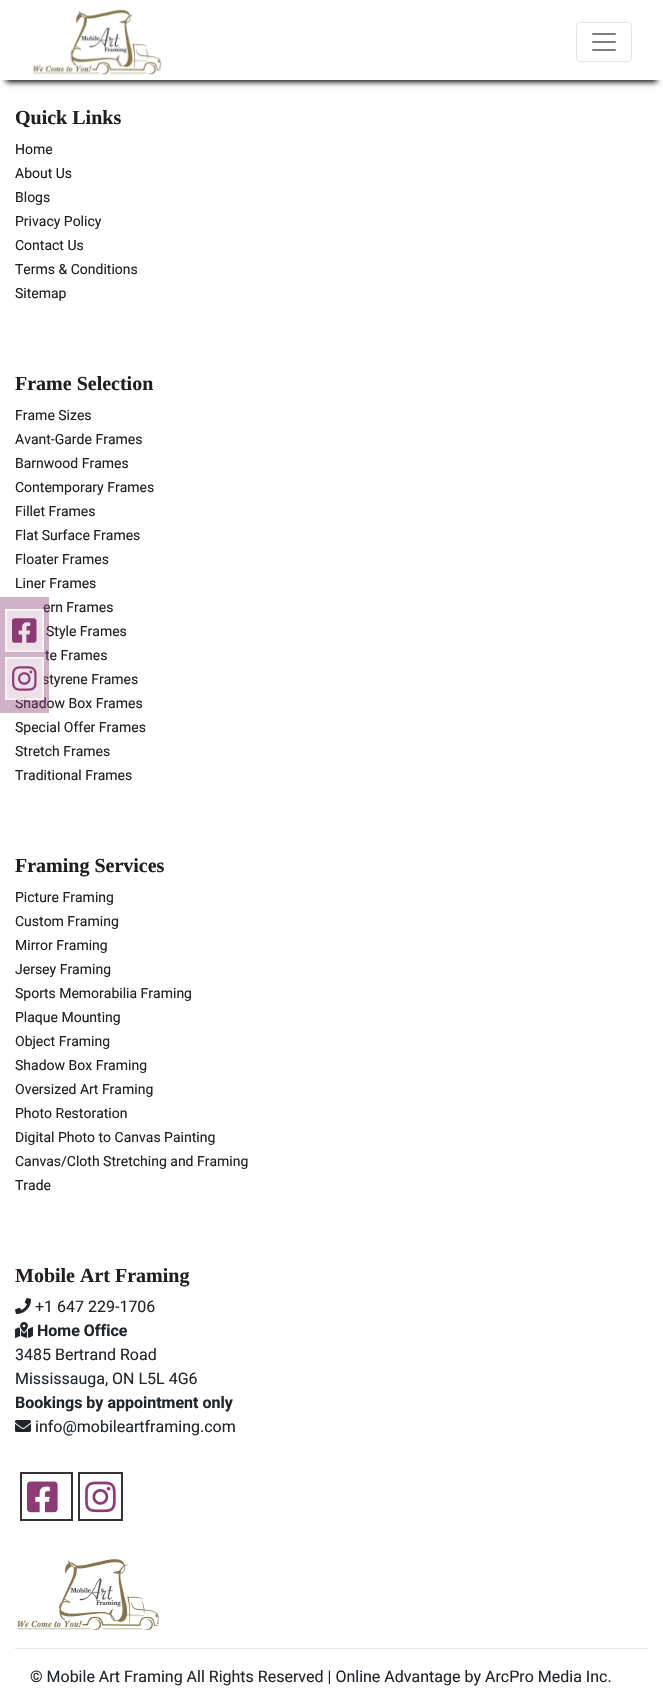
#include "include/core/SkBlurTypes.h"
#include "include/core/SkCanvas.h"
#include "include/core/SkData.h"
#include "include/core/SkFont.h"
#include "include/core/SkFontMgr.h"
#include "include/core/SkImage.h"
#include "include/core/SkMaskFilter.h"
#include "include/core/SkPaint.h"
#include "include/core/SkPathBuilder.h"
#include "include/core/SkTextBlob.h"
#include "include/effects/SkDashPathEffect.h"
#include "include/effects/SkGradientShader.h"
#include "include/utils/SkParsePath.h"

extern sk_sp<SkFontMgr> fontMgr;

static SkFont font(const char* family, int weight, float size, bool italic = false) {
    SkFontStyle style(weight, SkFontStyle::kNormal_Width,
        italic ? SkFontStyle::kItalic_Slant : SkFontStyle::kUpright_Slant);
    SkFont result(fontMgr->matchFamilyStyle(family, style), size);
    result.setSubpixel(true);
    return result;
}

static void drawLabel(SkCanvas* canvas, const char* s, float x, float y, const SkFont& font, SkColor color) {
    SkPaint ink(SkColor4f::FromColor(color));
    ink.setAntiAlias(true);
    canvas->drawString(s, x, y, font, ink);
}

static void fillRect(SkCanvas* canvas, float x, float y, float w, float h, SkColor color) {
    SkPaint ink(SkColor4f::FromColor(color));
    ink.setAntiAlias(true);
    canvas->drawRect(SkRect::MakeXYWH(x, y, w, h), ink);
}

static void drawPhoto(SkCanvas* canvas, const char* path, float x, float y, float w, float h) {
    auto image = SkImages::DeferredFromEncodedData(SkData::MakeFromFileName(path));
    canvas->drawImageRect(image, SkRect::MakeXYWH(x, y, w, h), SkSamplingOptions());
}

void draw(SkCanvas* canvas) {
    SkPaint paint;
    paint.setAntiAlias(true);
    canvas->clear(0xFFFFFFFF);
    paint.setColor(0xFF000000);
    paint.setMaskFilter(SkMaskFilter::MakeBlur(kNormal_SkBlurStyle, 3));
    canvas->drawRect(SkRect::MakeXYWH(6, 14, 651, 68), paint);
    paint.setMaskFilter(nullptr);
    fillRect(canvas, 0, 7, 663, 73, 0xFFFFFFFF);
    drawPhoto(canvas, "assets/img1.png", 33, 9, 129, 66);
    paint.setStroke(true);
    paint.setStrokeWidth(1);
    paint.setColor(0xFFE6E6E6);
    canvas->drawRoundRect(SkRect::MakeXYWH(576.5f, 22.5f, 55, 39), 3.5f, 3.5f, paint);
    drawPhoto(canvas, "assets/img2.png", 592, 33, 24, 18);
    SkFont font1 = font("Liberation Serif", 700, 20);
    drawLabel(canvas, "Quick Links", 15, 124, font1, 0xFF221E20);
    SkFont font2 = font("Roboto", 400, 14);
    drawLabel(canvas, "Home", 15, 154, font2, 0xFF221E20);
    drawLabel(canvas, "About Us", 15, 178, font2, 0xFF221E20);
    drawLabel(canvas, "Blogs", 15, 202, font2, 0xFF221E20);
    drawLabel(canvas, "Privacy Policy", 15, 226, font2, 0xFF221E20);
    drawLabel(canvas, "Contact Us", 15, 250, font2, 0xFF221E20);
    drawLabel(canvas, "Terms & Conditions", 15, 274, font2, 0xFF221E20);
    drawLabel(canvas, "Sitemap", 15, 298, font2, 0xFF221E20);
    drawLabel(canvas, "Frame Selection", 15, 390, font1, 0xFF221E20);
    drawLabel(canvas, "Frame Sizes", 15, 420, font2, 0xFF221E20);
    drawLabel(canvas, "Avant-Garde Frames", 15, 444, font2, 0xFF221E20);
    drawLabel(canvas, "Barnwood Frames", 15, 468, font2, 0xFF221E20);
    drawLabel(canvas, "Contemporary Frames", 15, 492, font2, 0xFF221E20);
    drawLabel(canvas, "Fillet Frames", 15, 516, font2, 0xFF221E20);
    drawLabel(canvas, "Flat Surface Frames", 15, 540, font2, 0xFF221E20);
    drawLabel(canvas, "Floater Frames", 15, 564, font2, 0xFF221E20);
    drawLabel(canvas, "Liner Frames", 15, 588, font2, 0xFF221E20);
    drawLabel(canvas, "ern Frames", 43, 612, font2, 0xFF221E20);
    drawLabel(canvas, "Style Frames", 46, 636, font2, 0xFF221E20);
    drawLabel(canvas, "te Frames", 45, 660, font2, 0xFF221E20);
    drawLabel(canvas, "styrene Frames", 42, 684, font2, 0xFF221E20);
    drawLabel(canvas, "Shadow Box Frames", 15, 708, font2, 0xFF221E20);
    drawLabel(canvas, "Special Offer Frames", 15, 732, font2, 0xFF221E20);
    drawLabel(canvas, "Stretch Frames", 15, 756, font2, 0xFF221E20);
    drawLabel(canvas, "Traditional Frames", 15, 780, font2, 0xFF221E20);
    drawLabel(canvas, "Framing Services", 15, 872, font1, 0xFF221E20);
    drawLabel(canvas, "Picture Framing", 15, 902, font2, 0xFF221E20);
    drawLabel(canvas, "Custom Framing", 15, 926, font2, 0xFF221E20);
    drawLabel(canvas, "Mirror Framing", 15, 950, font2, 0xFF221E20);
    drawLabel(canvas, "Jersey Framing", 15, 974, font2, 0xFF221E20);
    drawLabel(canvas, "Sports Memorabilia Framing", 15, 998, font2, 0xFF221E20);
    drawLabel(canvas, "Plaque Mounting", 15, 1022, font2, 0xFF221E20);
    drawLabel(canvas, "Object Framing", 15, 1046, font2, 0xFF221E20);
    drawLabel(canvas, "Shadow Box Framing", 15, 1070, font2, 0xFF221E20);
    drawLabel(canvas, "Oversized Art Framing", 15, 1094, font2, 0xFF221E20);
    drawLabel(canvas, "Photo Restoration", 15, 1118, font2, 0xFF221E20);
    drawLabel(canvas, "Digital Photo to Canvas Painting", 15, 1142, font2, 0xFF221E20);
    drawLabel(canvas, "Canvas/Cloth Stretching and Framing", 15, 1166, font2, 0xFF221E20);
    drawLabel(canvas, "Trade", 15, 1190, font2, 0xFF221E20);
    drawLabel(canvas, "Mobile Art Framing", 15, 1282, font1, 0xFF221E20);
    drawPhoto(canvas, "assets/img3.png", 15, 1298, 16, 16);
    SkFont font3 = font("Roboto", 400, 16);
    drawLabel(canvas, "+1 647 229-1706", 35, 1312, font3, 0xFF212529);
    drawPhoto(canvas, "assets/img4.png", 15, 1322, 18, 16);
    SkFont font4 = font("Roboto", 700, 16);
    drawLabel(canvas, "Home Office", 37, 1336, font4, 0xFF212529);
    drawLabel(canvas, "3485 Bertrand Road", 15, 1360, font3, 0xFF212529);
    drawLabel(canvas, "Mississauga, ON L5L 4G6", 15, 1384, font3, 0xFF212529);
    drawLabel(canvas, "Bookings by appointment only", 15, 1408, font4, 0xFF212529);
    drawPhoto(canvas, "assets/img5.png", 15, 1420, 16, 12);
    drawLabel(canvas, "info@mobileartframing.com", 35, 1432, font3, 0xFF212529);
    fillRect(canvas, 20, 1472, 53, 2, 0xFF333333);
    fillRect(canvas, 20, 1519, 38, 2, 0xFF333333);
    fillRect(canvas, 20, 1472, 2, 49, 0xFF333333);
    drawPhoto(canvas, "assets/img6.png", 27, 1481, 31, 32);
    fillRect(canvas, 71, 1472, 2, 49, 0xFF333333);
    paint.setStrokeWidth(2);
    paint.setColor(0xFF333333);
    canvas->drawRect(SkRect::MakeXYWH(79, 1473, 43, 47), paint);
    drawPhoto(canvas, "assets/img7.png", 85, 1481, 31, 32);
    fillRect(canvas, 58, 1519, 15, 2, 0xFF333333);
    drawPhoto(canvas, "assets/img8.png", 17, 1559, 142, 71);
    fillRect(canvas, 15, 1648, 633, 1, 0xFFE6E6E6);
    drawLabel(canvas, "© Mobile Art Framing All Rights Reserved | Online Advantage by ArcPro Media Inc.", 30, 1682, font3, 0xFF212529);
    fillRect(canvas, 0, 597, 49, 116, 0x668C3B74);
    fillRect(canvas, 5, 609, 39, 43, 0x99FFFFFF);
    paint.setColor(0x99FFFFFF);
    canvas->drawRect(SkRect::MakeXYWH(6, 610, 37, 41), paint);
    drawPhoto(canvas, "assets/img9.png", 12, 618, 25, 25);
    fillRect(canvas, 5, 657, 39, 43, 0x99FFFFFF);
    canvas->drawRect(SkRect::MakeXYWH(6, 658, 37, 41), paint);
    drawPhoto(canvas, "assets/img10.png", 12, 666, 25, 25);
}
